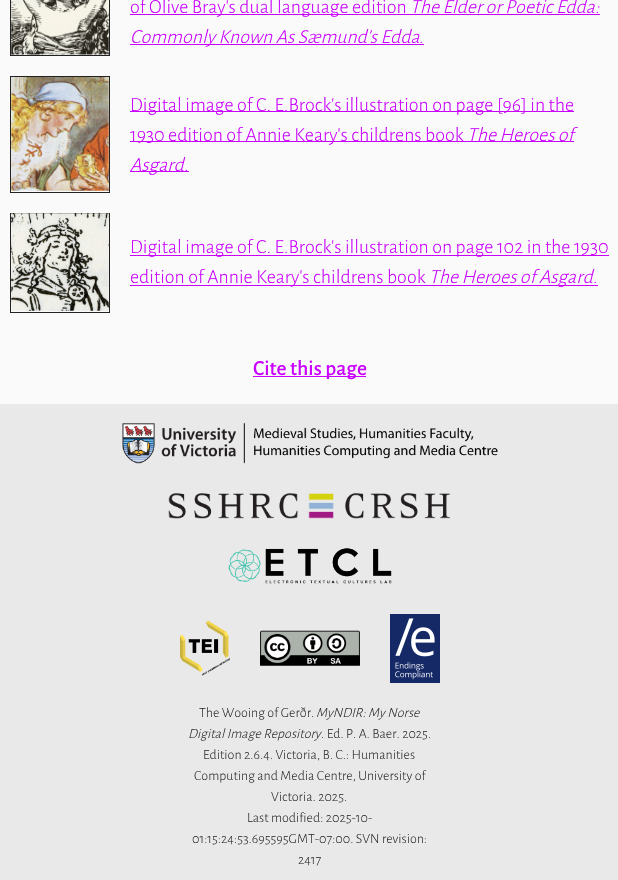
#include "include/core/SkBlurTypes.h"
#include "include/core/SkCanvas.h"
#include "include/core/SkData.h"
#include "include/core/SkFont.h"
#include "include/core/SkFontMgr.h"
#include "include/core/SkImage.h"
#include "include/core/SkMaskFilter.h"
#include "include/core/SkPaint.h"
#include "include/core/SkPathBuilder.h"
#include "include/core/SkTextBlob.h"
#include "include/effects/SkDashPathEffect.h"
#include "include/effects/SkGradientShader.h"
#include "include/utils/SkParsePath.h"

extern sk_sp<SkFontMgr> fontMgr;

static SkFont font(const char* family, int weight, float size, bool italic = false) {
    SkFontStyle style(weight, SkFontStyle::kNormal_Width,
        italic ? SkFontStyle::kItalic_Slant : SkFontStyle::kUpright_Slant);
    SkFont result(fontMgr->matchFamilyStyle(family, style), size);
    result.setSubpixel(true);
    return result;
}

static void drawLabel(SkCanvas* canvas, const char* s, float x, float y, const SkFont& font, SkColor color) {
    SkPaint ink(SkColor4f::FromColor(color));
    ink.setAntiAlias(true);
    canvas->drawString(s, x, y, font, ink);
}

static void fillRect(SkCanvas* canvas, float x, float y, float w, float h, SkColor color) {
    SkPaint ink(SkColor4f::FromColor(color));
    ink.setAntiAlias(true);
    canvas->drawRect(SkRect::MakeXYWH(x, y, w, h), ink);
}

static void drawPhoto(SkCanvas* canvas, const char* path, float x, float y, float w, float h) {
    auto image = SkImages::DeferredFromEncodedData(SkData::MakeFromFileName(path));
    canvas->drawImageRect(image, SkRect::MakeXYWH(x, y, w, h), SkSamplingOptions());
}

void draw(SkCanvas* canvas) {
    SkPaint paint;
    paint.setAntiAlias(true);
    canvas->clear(0xFFFAFAFA);
    paint.setStroke(true);
    paint.setStrokeWidth(1);
    paint.setColor(0xFF222222);
    canvas->drawRect(SkRect::MakeXYWH(10.5f, -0.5f, 99, 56), paint);
    drawPhoto(canvas, "assets/img1.png", 11, 0, 98, 55);
    fillRect(canvas, 130, 14, 470, 1, 0xFFCA00FF);
    SkFont font1 = font("Alegreya Sans", 300, 20);
    drawLabel(canvas, "of Olive Bray's dual language edition", 130, 13, font1, 0xFFCA00FF);
    SkFont font2 = font("Alegreya Sans", 300, 20, true);
    drawLabel(canvas, "The Elder or Poetic Edda:", 410, 13, font2, 0xFFCA00FF);
    fillRect(canvas, 130, 44, 294, 1, 0xFFCA00FF);
    drawLabel(canvas, "Commonly Known As Sæmund's Edda", 130, 43, font2, 0xFFCA00FF);
    drawLabel(canvas, ".", 419, 43, font1, 0xFFCA00FF);
    canvas->drawRect(SkRect::MakeXYWH(10.5f, 76.5f, 99, 116), paint);
    drawPhoto(canvas, "assets/img2.png", 11, 77, 98, 114);
    fillRect(canvas, 130, 111, 444, 1, 0xFFCA00FF);
    drawLabel(canvas, "Digital image of C. E.Brock's illustration on page [96] in the", 130, 111, font1, 0xFFCA00FF);
    fillRect(canvas, 130, 141, 444, 1, 0xFFCA00FF);
    drawLabel(canvas, "1930 edition of Annie Keary's childrens book", 130, 141, font1, 0xFFCA00FF);
    drawLabel(canvas, "The Heroes of", 467, 141, font2, 0xFFCA00FF);
    fillRect(canvas, 130, 171, 54, 1, 0xFFCA00FF);
    drawLabel(canvas, "Asgard", 130, 171, font2, 0xFFCA00FF);
    fillRect(canvas, 184, 171, 5, 1, 0xFFCA00FF);
    drawLabel(canvas, ".", 184, 171, font1, 0xFFCA00FF);
    canvas->drawRect(SkRect::MakeXYWH(10.5f, 213.5f, 99, 99), paint);
    drawPhoto(canvas, "assets/img3.png", 11, 213, 98, 98);
    fillRect(canvas, 130, 255, 479, 1, 0xFFCA00FF);
    drawLabel(canvas, "Digital image of C. E.Brock's illustration on page 102 in the 1930", 130, 253, font1, 0xFFCA00FF);
    fillRect(canvas, 130, 285, 463, 1, 0xFFCA00FF);
    drawLabel(canvas, "edition of Annie Keary's childrens book", 130, 283, font1, 0xFFCA00FF);
    drawLabel(canvas, "The Heroes of Asgard", 429, 283, font2, 0xFFCA00FF);
    drawLabel(canvas, ".", 593, 283, font1, 0xFFCA00FF);
    fillRect(canvas, 593, 285, 5, 1, 0xFFCA00FF);
    fillRect(canvas, 253, 376, 113, 1, 0xFFCA00FF);
    SkFont font3 = font("Alegreya Sans", 500, 21.5f);
    drawLabel(canvas, "Cite this page", 253, 375, font3, 0xFFCA00FF);
    fillRect(canvas, 0, 404, 618, 476, 0xFFE9E9E9);
    drawPhoto(canvas, "assets/img4.png", 122, 423, 376, 41);
    drawPhoto(canvas, "assets/img5.png", 168, 493, 282, 26);
    drawPhoto(canvas, "assets/img6.png", 228, 548, 164, 36);
    drawPhoto(canvas, "assets/img7.png", 180, 620, 50, 56);
    drawPhoto(canvas, "assets/img8.png", 260, 630, 100, 36);
    drawPhoto(canvas, "assets/img9.png", 390, 614, 50, 69);
    SkFont font4 = font("Alegreya Sans", 300, 14);
    drawLabel(canvas, "The Wooing of Gerðr.", 199, 717, font4, 0xFF333333);
    SkFont font5 = font("Alegreya Sans", 300, 14, true);
    drawLabel(canvas, "MyNDIR: My Norse", 316, 717, font5, 0xFF333333);
    drawLabel(canvas, "Digital Image Repository", 188, 738, font5, 0xFF333333);
    drawLabel(canvas, ". Ed. P. A. Baer. 2025.", 321, 738, font4, 0xFF333333);
    drawLabel(canvas, "Edition 2.6.4. Victoria, B. C.: Humanities", 203, 759, font4, 0xFF333333);
    drawLabel(canvas, "Computing and Media Centre, University of", 194, 780, font4, 0xFF333333);
    drawLabel(canvas, "Victoria. 2025.", 271, 801, font4, 0xFF333333);
    drawLabel(canvas, "Last modified: 2025-10-", 247, 822, font4, 0xFF333333);
    drawLabel(canvas, "01:15:24:53.695595GMT-07:00. SVN revision:", 192, 843, font4, 0xFF333333);
    drawLabel(canvas, "2417", 298, 864, font4, 0xFF333333);
}
